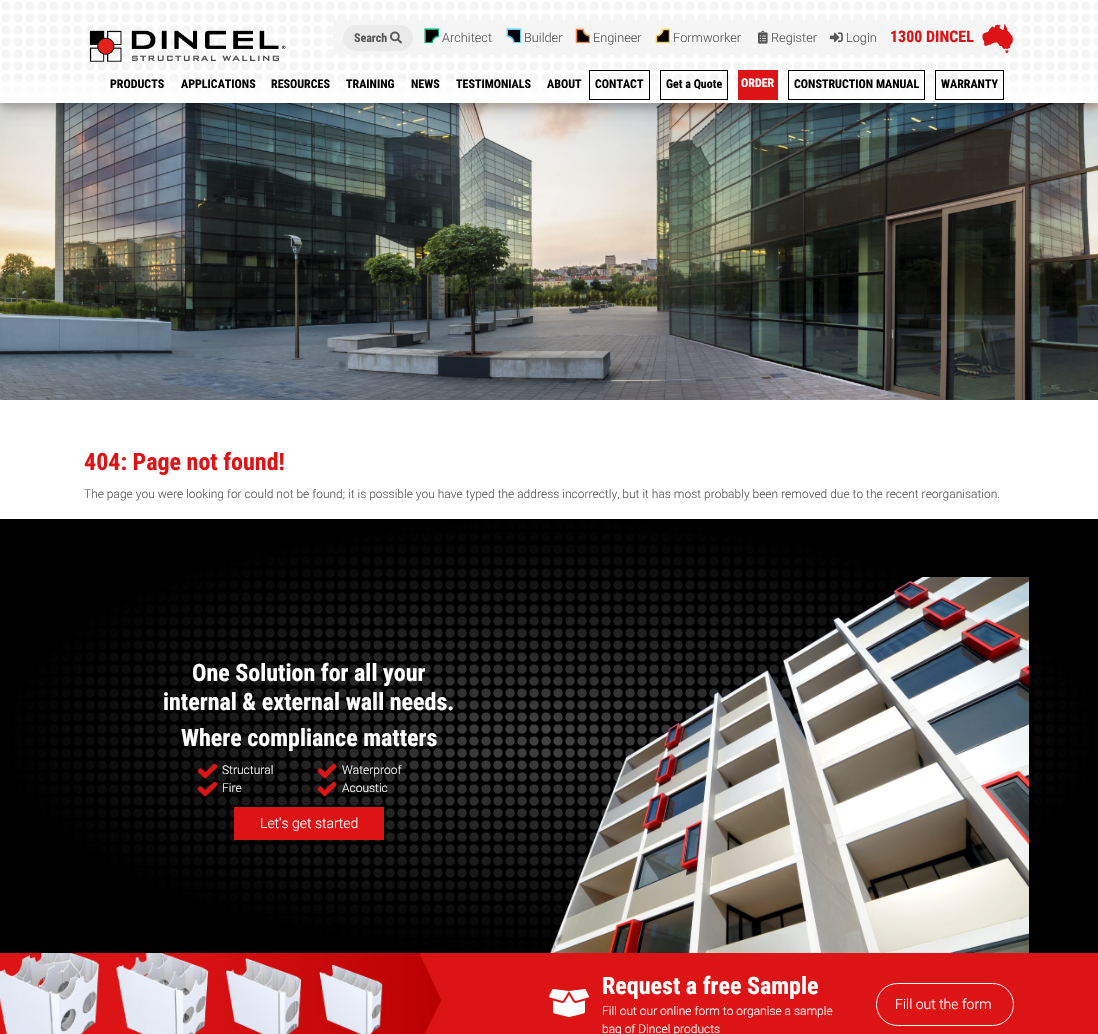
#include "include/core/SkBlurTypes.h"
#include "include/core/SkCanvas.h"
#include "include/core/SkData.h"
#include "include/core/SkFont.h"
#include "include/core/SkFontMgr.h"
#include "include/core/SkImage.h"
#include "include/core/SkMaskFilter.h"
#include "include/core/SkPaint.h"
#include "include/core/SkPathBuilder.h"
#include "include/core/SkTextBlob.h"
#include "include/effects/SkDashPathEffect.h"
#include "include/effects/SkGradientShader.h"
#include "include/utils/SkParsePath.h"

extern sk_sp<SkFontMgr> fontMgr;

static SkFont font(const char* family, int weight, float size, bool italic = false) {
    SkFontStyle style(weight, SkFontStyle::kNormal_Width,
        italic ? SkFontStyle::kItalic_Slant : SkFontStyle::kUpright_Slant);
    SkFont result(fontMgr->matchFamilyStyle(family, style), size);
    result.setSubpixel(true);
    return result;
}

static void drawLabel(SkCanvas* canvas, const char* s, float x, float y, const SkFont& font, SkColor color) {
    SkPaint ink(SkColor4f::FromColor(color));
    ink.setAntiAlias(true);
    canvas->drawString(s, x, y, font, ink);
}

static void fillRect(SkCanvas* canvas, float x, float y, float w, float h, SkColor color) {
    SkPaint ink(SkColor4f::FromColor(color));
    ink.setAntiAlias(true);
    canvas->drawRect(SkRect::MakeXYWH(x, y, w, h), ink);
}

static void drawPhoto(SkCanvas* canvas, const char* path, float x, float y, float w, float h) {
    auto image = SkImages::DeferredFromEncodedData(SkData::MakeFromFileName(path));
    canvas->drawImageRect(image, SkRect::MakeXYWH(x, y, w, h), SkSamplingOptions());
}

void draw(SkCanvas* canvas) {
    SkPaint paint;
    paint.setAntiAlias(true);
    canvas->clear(0xFFFFFFFF);
    drawPhoto(canvas, "assets/img11.png", 0, 103, 1098, 297);
    paint.setColor(0x30000000);
    paint.setMaskFilter(SkMaskFilter::MakeBlur(kNormal_SkBlurStyle, 10));
    canvas->drawRect(SkRect::MakeXYWH(0, 6, 1098, 103), paint);
    paint.setMaskFilter(nullptr);
    paint.setColor(0x33000000);
    paint.setMaskFilter(SkMaskFilter::MakeBlur(kNormal_SkBlurStyle, 4));
    canvas->drawRect(SkRect::MakeXYWH(0, 4, 1098, 103), paint);
    paint.setMaskFilter(nullptr);
    fillRect(canvas, 0, 0, 1098, 103, 0xFFFFFFFF);
    drawPhoto(canvas, "assets/img1.png", 1, 1, 1097, 102);
    drawPhoto(canvas, "assets/img2.png", 89, 30, 197, 32);
    fillRect(canvas, 333, 20, 681, 35, 0xFFF5F5F5);
    paint.setColor(0xFFEAEAEA);
    canvas->drawRoundRect(SkRect::MakeXYWH(343.5f, 25.5f, 69, 25), 12.5f, 12.5f, paint);
    paint.setStroke(true);
    paint.setStrokeWidth(1);
    canvas->drawRoundRect(SkRect::MakeXYWH(343.5f, 25.5f, 69, 25), 12.5f, 12.5f, paint);
    SkFont font1 = font("Roboto Condensed", 700, 12);
    drawLabel(canvas, "Search", 354, 42, font1, 0xFF575656);
    drawPhoto(canvas, "assets/img3.png", 390, 31, 12, 13);
    drawPhoto(canvas, "assets/img4.png", 424, 28, 15, 15);
    SkFont font2 = font("Roboto", 300, 12.75f);
    drawLabel(canvas, "Architect", 442, 42, font2, 0xFF575656);
    drawPhoto(canvas, "assets/img5.png", 506, 28, 15, 15);
    drawLabel(canvas, "Builder", 524, 42, font2, 0xFF575656);
    drawPhoto(canvas, "assets/img6.png", 575, 28, 15, 15);
    drawLabel(canvas, "Engineer", 593, 42, font2, 0xFF575656);
    drawPhoto(canvas, "assets/img7.png", 655, 28, 15, 15);
    drawLabel(canvas, "Formworker", 673, 42, font2, 0xFF575656);
    drawPhoto(canvas, "assets/img8.png", 758, 30, 10, 14);
    drawLabel(canvas, "Register", 771, 42, font2, 0xFF575656);
    drawPhoto(canvas, "assets/img9.png", 830, 32, 13, 11);
    drawLabel(canvas, "Login", 846, 42, font2, 0xFF575656);
    SkFont font3 = font("Roboto Condensed", 700, 16);
    drawLabel(canvas, "1300 DINCEL", 890, 42, font3, 0xFFDC1415);
    drawPhoto(canvas, "assets/img10.png", 982, 24, 31, 29);
    paint.setStroke(false);
    {
        const SkColor colors[] = {0x00FFFFFF, 0xFFFFFFFF};
        const float stops[] = {0, 1};
        const SkPoint ends[] = {{549, 70}, {549, 103}};
        paint.setShader(SkGradientShader::MakeLinear(ends, colors, stops, 2, SkTileMode::kClamp));
        paint.setAlpha(255);
    }
    canvas->drawRect(SkRect::MakeXYWH(1, 79, 1097, 24), paint);
    drawLabel(canvas, "PRODUCTS", 110, 88, font1, 0xFF000000);
    drawLabel(canvas, "APPLICATIONS", 181, 88, font1, 0xFF000000);
    drawLabel(canvas, "RESOURCES", 271, 88, font1, 0xFF000000);
    drawLabel(canvas, "TRAINING", 346, 88, font1, 0xFF000000);
    drawLabel(canvas, "NEWS", 411, 88, font1, 0xFF000000);
    drawLabel(canvas, "TESTIMONIALS", 456, 88, font1, 0xFF000000);
    drawLabel(canvas, "ABOUT", 547, 88, font1, 0xFF000000);
    paint.setStroke(true);
    paint.setShader(nullptr);
    paint.setColor(0xFF000000);
    canvas->drawRect(SkRect::MakeXYWH(589.5f, 70.5f, 60, 29), paint);
    drawLabel(canvas, "CONTACT", 595, 88, font1, 0xFF000000);
    canvas->drawRect(SkRect::MakeXYWH(660.5f, 70.5f, 67, 29), paint);
    drawLabel(canvas, "Get a Quote", 666, 88, font1, 0xFF000000);
    fillRect(canvas, 738, 70, 40, 30, 0xFFDC1415);
    drawLabel(canvas, "ORDER", 741, 87, font1, 0xFFFFFFFF);
    canvas->drawRect(SkRect::MakeXYWH(788.5f, 70.5f, 136, 29), paint);
    drawLabel(canvas, "CONSTRUCTION MANUAL", 794, 88, font1, 0xFF000000);
    canvas->drawRect(SkRect::MakeXYWH(935.5f, 70.5f, 68, 29), paint);
    drawLabel(canvas, "WARRANTY", 941, 88, font1, 0xFF000000);
    SkFont font4 = font("Roboto Condensed", 700, 24);
    drawLabel(canvas, "404: Page not found!", 84, 470, font4, 0xFFDC1415);
    SkFont font5 = font("Roboto", 300, 12);
    drawLabel(canvas, "The page you were looking for could not be found; it is possible you have typed the address incorrectly, but it has most probably been removed due to the recent reorganisation.", 84, 498, font5, 0xFF575656);
    fillRect(canvas, 2, 521, 1094, 430, 0xFF000000);
    drawPhoto(canvas, "assets/img12.png", 2, 521, 1094, 429);
    paint.setStroke(false);
    {
        const SkColor colors[] = {0x33000000, 0xFF000000};
        const float stops[] = {0, 1};
        SkMatrix m = SkMatrix::Translate(549, 736).preScale(549, 217);
        paint.setShader(SkGradientShader::MakeRadial({0, 0}, 1, colors, stops, 2, SkTileMode::kClamp, 0, &m));
        paint.setAlpha(255);
    }
    canvas->drawRect(SkRect::MakeXYWH(0, 519, 1098, 434), paint);
    drawLabel(canvas, "One Solution for all your", 192, 681, font4, 0xFFFFFFFF);
    drawLabel(canvas, "internal & external wall needs.", 163, 710, font4, 0xFFFFFFFF);
    drawLabel(canvas, "Where compliance matters", 181, 746, font4, 0xFFFFFFFF);
    drawPhoto(canvas, "assets/img13.png", 197, 763, 21, 16);
    drawLabel(canvas, "Structural", 222, 774, font5, 0xFFFFFFFF);
    drawPhoto(canvas, "assets/img14.png", 317, 763, 20, 16);
    drawLabel(canvas, "Waterproof", 342, 774, font5, 0xFFFFFFFF);
    drawPhoto(canvas, "assets/img15.png", 197, 781, 21, 16);
    drawLabel(canvas, "Fire", 222, 792, font5, 0xFFFFFFFF);
    drawPhoto(canvas, "assets/img16.png", 317, 781, 20, 16);
    drawLabel(canvas, "Acoustic", 342, 792, font5, 0xFFFFFFFF);
    fillRect(canvas, 234, 807, 150, 33, 0xFFDC1415);
    SkFont font6 = font("Roboto", 300, 14);
    drawLabel(canvas, "Let's get started", 260, 828, font6, 0xFFFFFFFF);
    drawPhoto(canvas, "assets/img17.png", 550, 577, 479, 376);
    fillRect(canvas, 442, 953, 656, 81, 0xFFDC1415);
    drawPhoto(canvas, "assets/img18.png", 0, 953, 442, 81);
    drawPhoto(canvas, "assets/img19.png", 549, 989, 40, 28);
    drawLabel(canvas, "Request a free Sample", 602, 994, font4, 0xFFFFFFFF);
    drawLabel(canvas, "Fill out our online form to organise a sample", 602, 1015, font5, 0xFFFFFFFF);
    drawLabel(canvas, "bag of Dincel products", 602, 1033, font5, 0xFFFFFFFF);
    paint.setStroke(true);
    paint.setShader(nullptr);
    paint.setColor(0xFFFFFFFF);
    canvas->drawRoundRect(SkRect::MakeXYWH(876.5f, 983.5f, 137, 42), 21, 21, paint);
    drawLabel(canvas, "Fill out the form", 895, 1009, font6, 0xFFFFFFFF);
}
